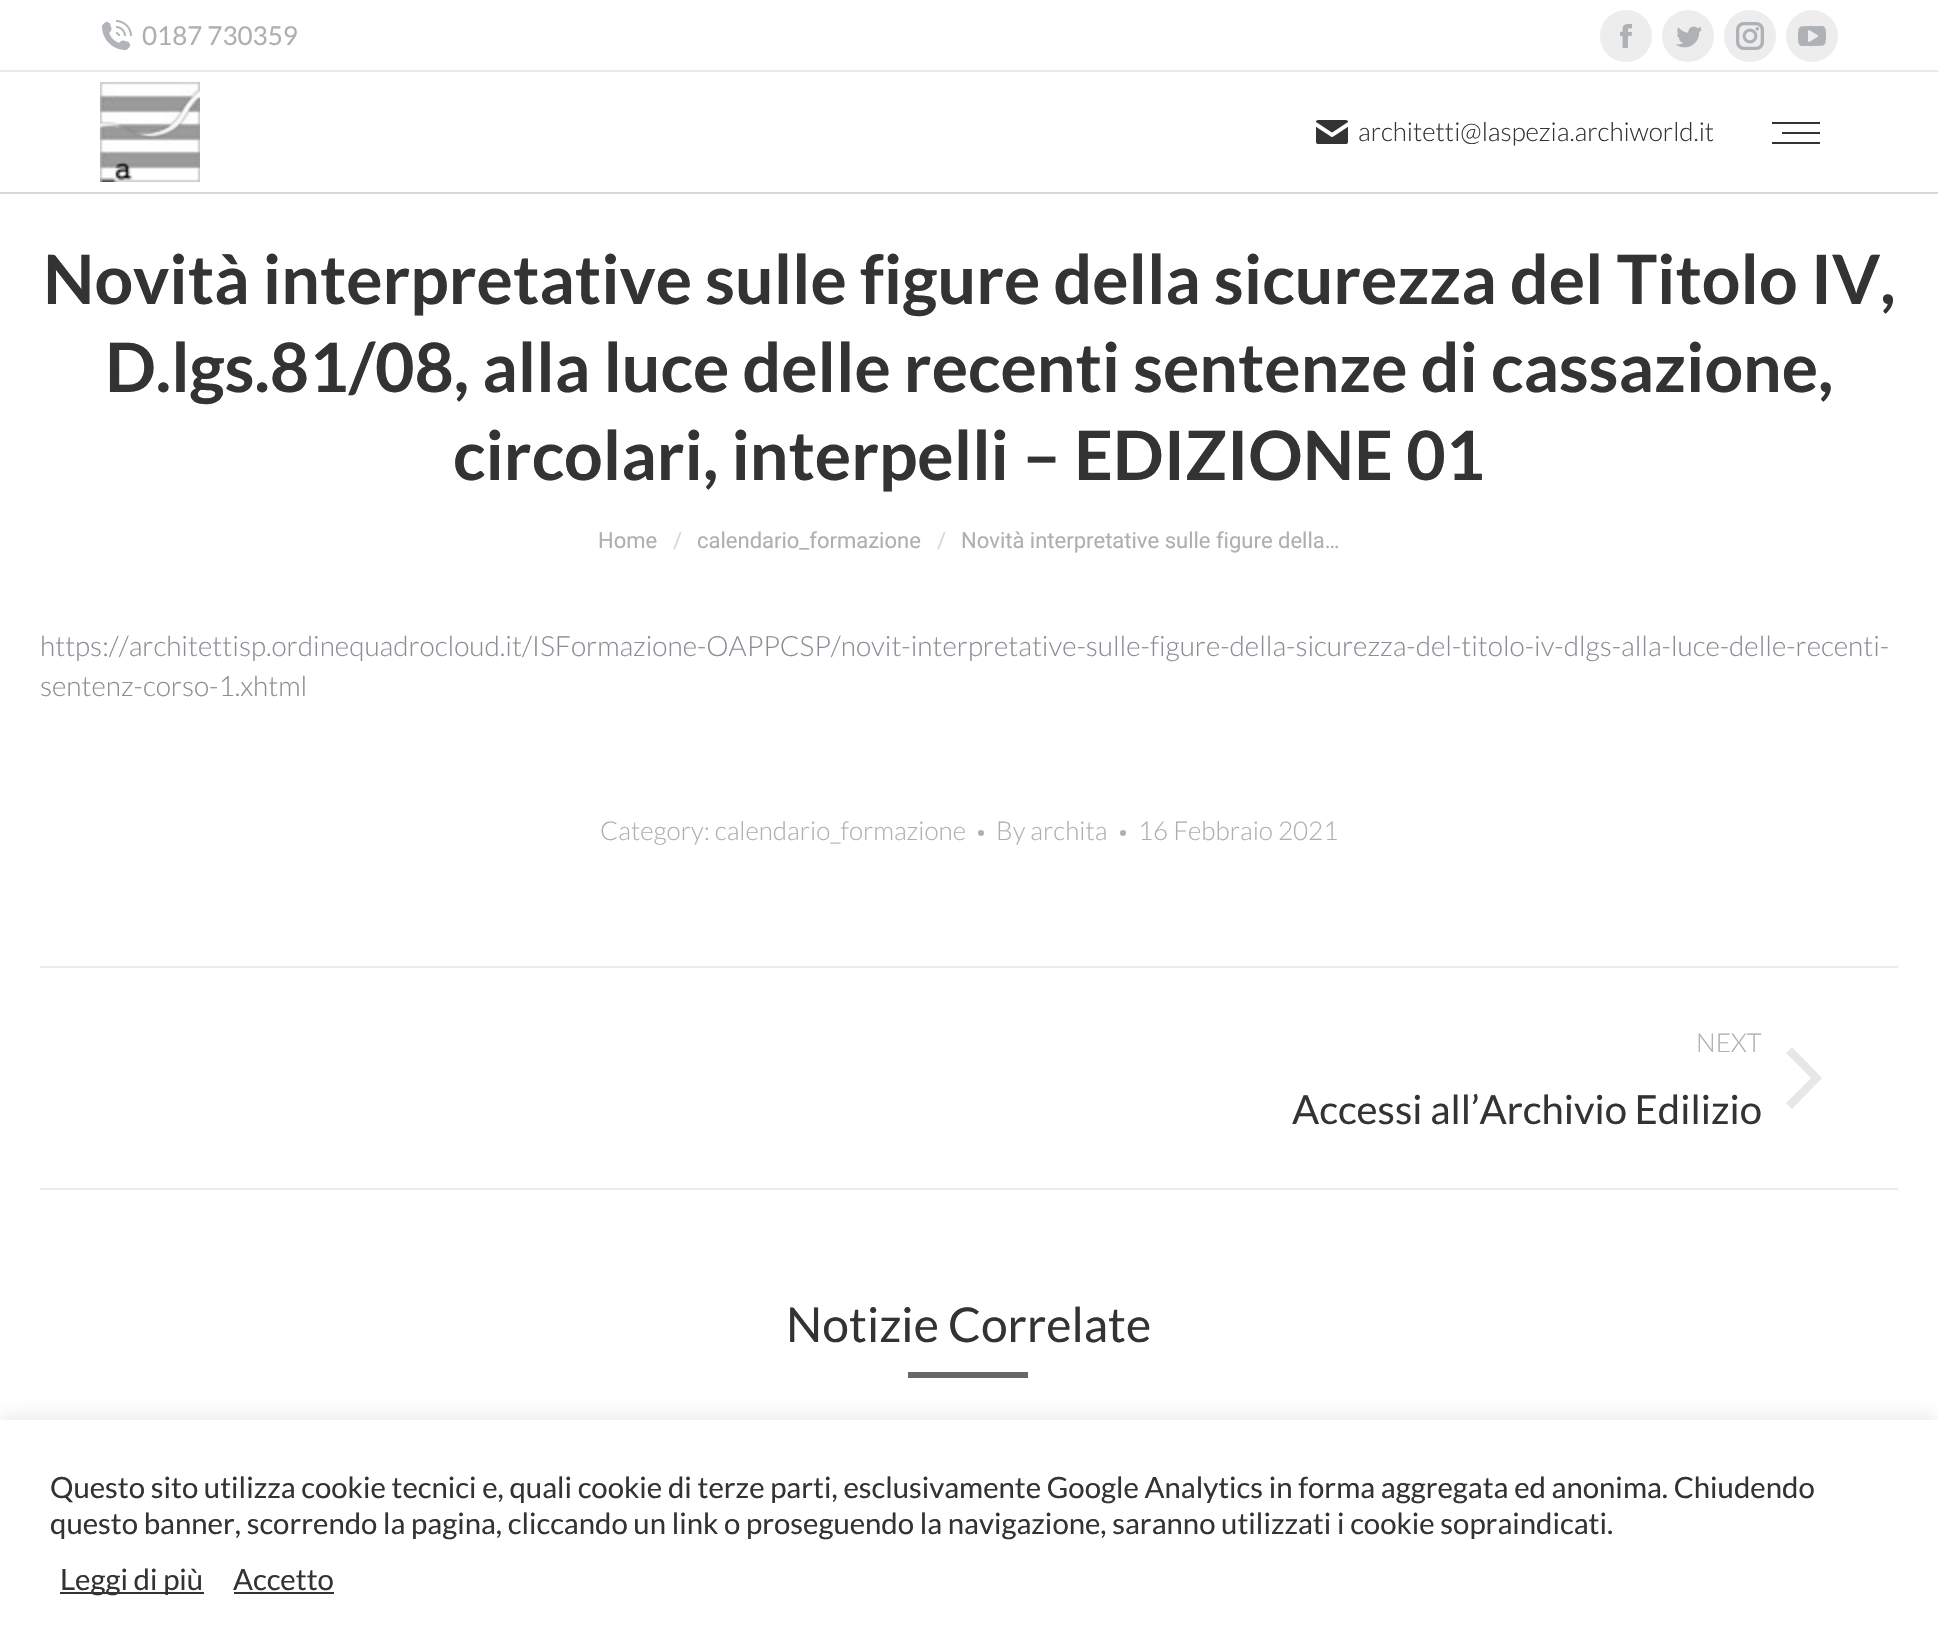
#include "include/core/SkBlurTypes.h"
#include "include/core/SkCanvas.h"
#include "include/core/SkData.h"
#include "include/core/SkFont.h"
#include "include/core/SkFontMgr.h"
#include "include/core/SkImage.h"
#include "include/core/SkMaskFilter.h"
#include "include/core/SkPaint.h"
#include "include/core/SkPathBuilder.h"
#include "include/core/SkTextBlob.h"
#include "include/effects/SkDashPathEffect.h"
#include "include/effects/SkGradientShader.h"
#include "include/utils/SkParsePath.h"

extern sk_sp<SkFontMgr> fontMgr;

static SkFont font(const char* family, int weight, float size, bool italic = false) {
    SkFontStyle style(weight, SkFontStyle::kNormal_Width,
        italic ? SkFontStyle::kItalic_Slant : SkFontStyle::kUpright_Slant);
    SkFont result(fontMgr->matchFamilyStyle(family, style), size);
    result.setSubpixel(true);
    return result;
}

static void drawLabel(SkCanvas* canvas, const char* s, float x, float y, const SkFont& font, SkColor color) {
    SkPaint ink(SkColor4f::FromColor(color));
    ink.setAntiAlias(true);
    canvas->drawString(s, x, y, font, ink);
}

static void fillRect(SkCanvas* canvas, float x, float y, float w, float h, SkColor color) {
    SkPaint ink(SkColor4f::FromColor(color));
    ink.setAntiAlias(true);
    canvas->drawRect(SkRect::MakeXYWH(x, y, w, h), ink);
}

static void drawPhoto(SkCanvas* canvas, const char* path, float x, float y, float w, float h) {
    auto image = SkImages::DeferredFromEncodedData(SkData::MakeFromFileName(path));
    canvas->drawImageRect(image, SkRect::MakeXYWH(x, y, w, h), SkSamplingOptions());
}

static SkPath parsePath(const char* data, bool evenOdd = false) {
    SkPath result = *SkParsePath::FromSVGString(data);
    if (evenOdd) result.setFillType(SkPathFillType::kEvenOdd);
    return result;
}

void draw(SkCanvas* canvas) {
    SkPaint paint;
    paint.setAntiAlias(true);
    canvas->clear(0xFFFFFFFF);
    fillRect(canvas, 0, 192, 1938, 2, 0xFFD8D8D8);
    drawPhoto(canvas, "assets/img1.png", 102, 20, 30, 30);
    SkFont font1 = font("Lato", 400, 26);
    drawLabel(canvas, "0187 730359", 142, 45, font1, 0xFFADAFB3);
    paint.setColor(0xFFEDEDED);
    canvas->drawCircle(1626, 36, 26, paint);
    drawPhoto(canvas, "assets/img2.png", 1620, 24, 12, 24);
    canvas->drawCircle(1688, 36, 26, paint);
    drawPhoto(canvas, "assets/img3.png", 1676, 26, 26, 22);
    canvas->drawCircle(1750, 36, 26, paint);
    drawPhoto(canvas, "assets/img4.png", 1736, 22, 28, 28);
    canvas->drawCircle(1812, 36, 26, paint);
    drawPhoto(canvas, "assets/img5.png", 1798, 26, 28, 20);
    fillRect(canvas, 0, 70, 1938, 2, 0xFFE9E9E9);
    drawPhoto(canvas, "assets/img6.png", 100, 82, 100, 100);
    drawPhoto(canvas, "assets/img7.png", 1316, 120, 32, 24);
    SkFont font2 = font("Lato", 300, 26);
    drawLabel(canvas, "architetti@laspezia.archiworld.it", 1358, 141, font2, 0xFF333333);
    fillRect(canvas, 1772, 122, 48, 2, 0xFF333333);
    fillRect(canvas, 1782, 132, 38, 2, 0xFF333333);
    fillRect(canvas, 1772, 142, 48, 2, 0xFF333333);
    SkFont font3 = font("Lato", 700, 68);
    drawLabel(canvas, "Novità interpretative sulle figure della sicurezza del Titolo IV,", 43, 304, font3, 0xFF333333);
    drawLabel(canvas, "D.lgs.81/08, alla luce delle recenti sentenze di cassazione,", 105, 392, font3, 0xFF333333);
    drawLabel(canvas, "circolari, interpelli – EDIZIONE 01", 453, 480, font3, 0xFF333333);
    SkFont font4 = font("Roboto", 400, 22);
    drawLabel(canvas, "Home", 598, 548, font4, 0xFFADAFB3);
    drawLabel(canvas, "/", 673, 548, font4, 0xFFD6D7D9);
    drawLabel(canvas, "calendario_formazione", 697, 548, font4, 0xFFADAFB3);
    drawLabel(canvas, "/", 937, 548, font4, 0xFFD6D7D9);
    drawLabel(canvas, "Novità interpretative sulle figure della…", 961, 548, font4, 0xFFADAFB3);
    SkFont font5 = font("Lato", 300, 28);
    drawLabel(canvas, "https://architettisp.ordinequadrocloud.it/ISFormazione-OAPPCSP/novit-interpretative-sulle-figure-della-sicurezza-del-titolo-iv-dlgs-alla-luce-delle-recenti-", 40, 656, font5, 0xFF8B8D94);
    drawLabel(canvas, "sentenz-corso-1.xhtml", 40, 696, font5, 0xFF8B8D94);
    drawLabel(canvas, "Category: calendario_formazione", 600, 840, font2, 0xFFADAFB3);
    paint.setColor(0xFFADAFB3);
    canvas->drawCircle(981, 833, 3, paint);
    drawLabel(canvas, "By archita", 996, 840, font2, 0xFFADAFB3);
    canvas->drawCircle(1123, 833, 3, paint);
    drawLabel(canvas, "16 Febbraio 2021", 1138, 840, font2, 0xFFADAFB3);
    fillRect(canvas, 40, 966, 1858, 2, 0xFFEBEBEB);
    fillRect(canvas, 40, 1188, 1858, 2, 0xFFEBEBEB);
    drawLabel(canvas, "NEXT", 1696, 1052, font2, 0xFFADAFB3);
    SkFont font6 = font("Lato", 400, 40);
    drawLabel(canvas, "Accessi all’Archivio Edilizio", 1292, 1124, font6, 0xFF333333);
    paint.setColor(0xFFE7E7E7);
    canvas->drawPath(parsePath("M1811 1078L1786 1053L1792 1047L1822 1078L1792 1109L1786 1103Z"), paint);
    SkFont font7 = font("Lato", 400, 48);
    drawLabel(canvas, "Notizie Correlate", 786, 1342, font7, 0xFF333333);
    fillRect(canvas, 908, 1372, 120, 6, 0xFF676767);
    paint.setColor(0x4DACABAB);
    paint.setMaskFilter(SkMaskFilter::MakeBlur(kNormal_SkBlurStyle, 10));
    canvas->drawRect(SkRect::MakeXYWH(0, 1418, 1938, 228), paint);
    paint.setMaskFilter(nullptr);
    fillRect(canvas, 0, 1420, 1938, 227, 0xFFFFFFFF);
    SkFont font8 = font("Lato", 400, 29.33f);
    drawLabel(canvas, "Questo sito utilizza cookie tecnici e, quali cookie di terze parti, esclusivamente Google Analytics in forma aggregata ed anonima. Chiudendo", 50, 1498, font8, 0xFF333333);
    drawLabel(canvas, "questo banner, scorrendo la pagina, cliccando un link o proseguendo la navigazione, saranno utilizzati i cookie sopraindicati.", 50, 1534, font8, 0xFF333333);
    fillRect(canvas, 60, 1592, 144, 2, 0xFF333333);
    drawLabel(canvas, "Leggi di più", 60, 1590, font8, 0xFF333333);
    drawLabel(canvas, "Accetto", 233, 1590, font8, 0xFF333333);
    fillRect(canvas, 234, 1592, 100, 2, 0xFF333333);
}
